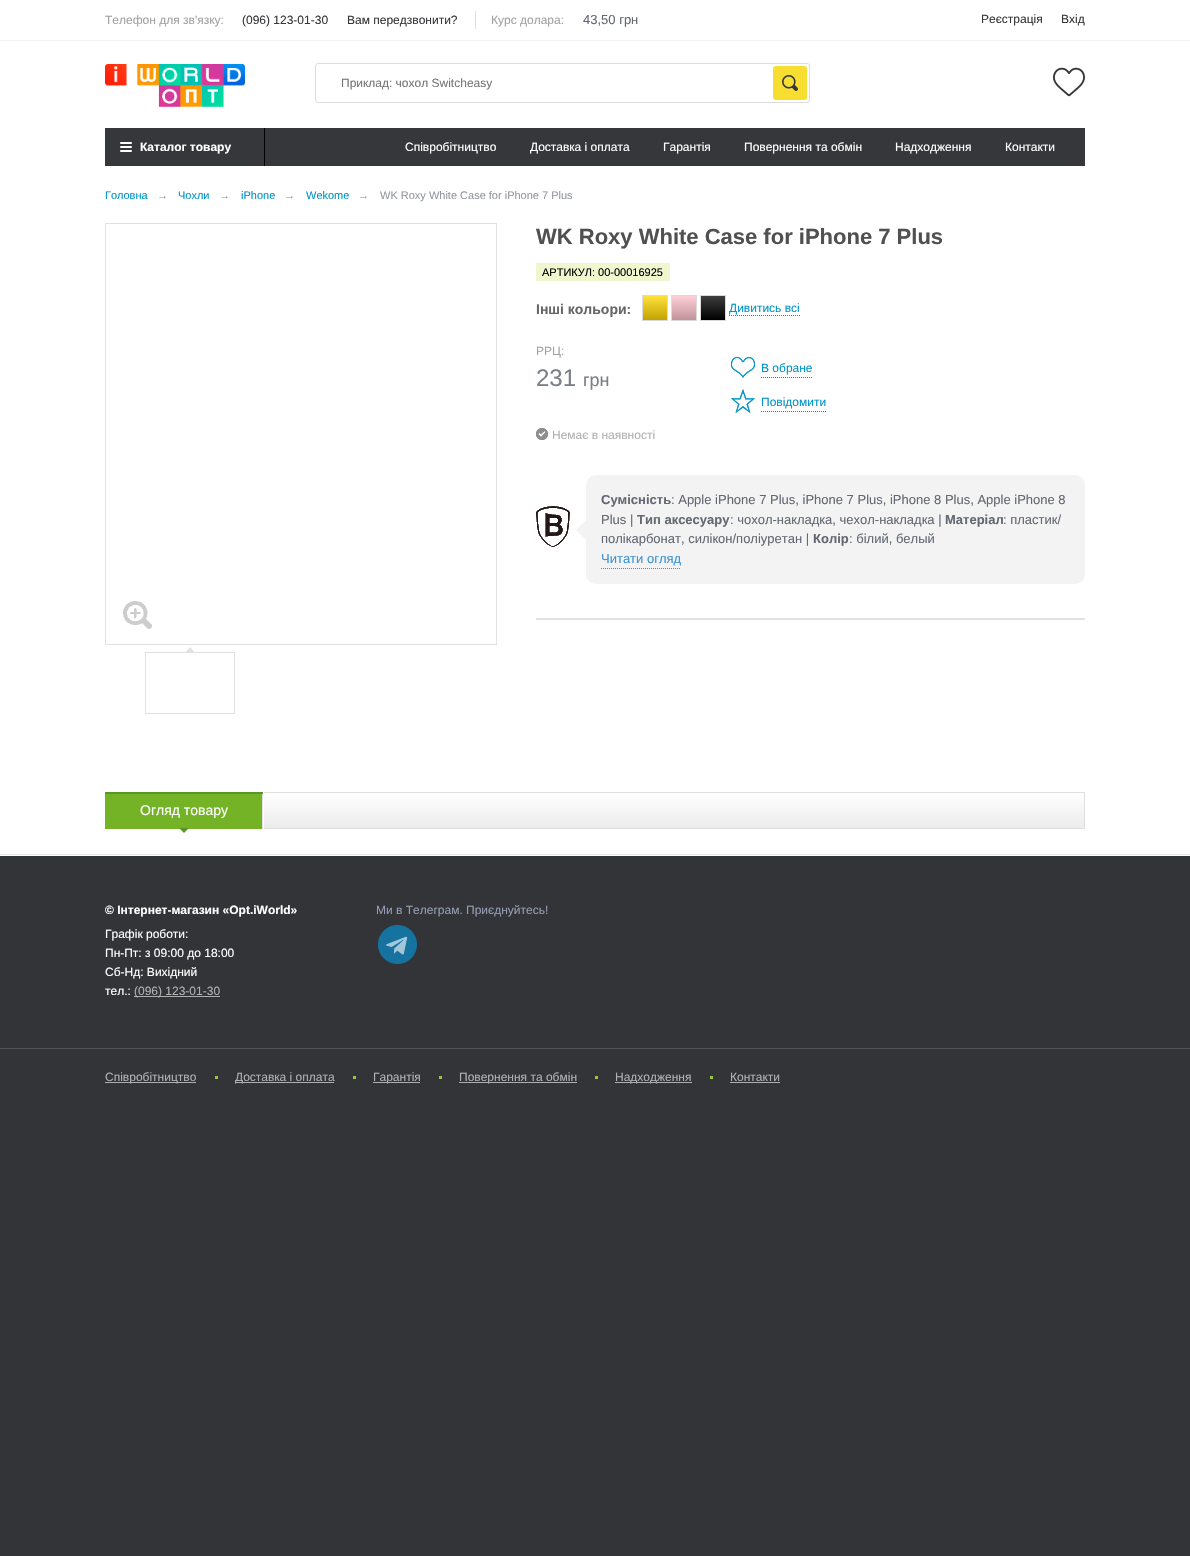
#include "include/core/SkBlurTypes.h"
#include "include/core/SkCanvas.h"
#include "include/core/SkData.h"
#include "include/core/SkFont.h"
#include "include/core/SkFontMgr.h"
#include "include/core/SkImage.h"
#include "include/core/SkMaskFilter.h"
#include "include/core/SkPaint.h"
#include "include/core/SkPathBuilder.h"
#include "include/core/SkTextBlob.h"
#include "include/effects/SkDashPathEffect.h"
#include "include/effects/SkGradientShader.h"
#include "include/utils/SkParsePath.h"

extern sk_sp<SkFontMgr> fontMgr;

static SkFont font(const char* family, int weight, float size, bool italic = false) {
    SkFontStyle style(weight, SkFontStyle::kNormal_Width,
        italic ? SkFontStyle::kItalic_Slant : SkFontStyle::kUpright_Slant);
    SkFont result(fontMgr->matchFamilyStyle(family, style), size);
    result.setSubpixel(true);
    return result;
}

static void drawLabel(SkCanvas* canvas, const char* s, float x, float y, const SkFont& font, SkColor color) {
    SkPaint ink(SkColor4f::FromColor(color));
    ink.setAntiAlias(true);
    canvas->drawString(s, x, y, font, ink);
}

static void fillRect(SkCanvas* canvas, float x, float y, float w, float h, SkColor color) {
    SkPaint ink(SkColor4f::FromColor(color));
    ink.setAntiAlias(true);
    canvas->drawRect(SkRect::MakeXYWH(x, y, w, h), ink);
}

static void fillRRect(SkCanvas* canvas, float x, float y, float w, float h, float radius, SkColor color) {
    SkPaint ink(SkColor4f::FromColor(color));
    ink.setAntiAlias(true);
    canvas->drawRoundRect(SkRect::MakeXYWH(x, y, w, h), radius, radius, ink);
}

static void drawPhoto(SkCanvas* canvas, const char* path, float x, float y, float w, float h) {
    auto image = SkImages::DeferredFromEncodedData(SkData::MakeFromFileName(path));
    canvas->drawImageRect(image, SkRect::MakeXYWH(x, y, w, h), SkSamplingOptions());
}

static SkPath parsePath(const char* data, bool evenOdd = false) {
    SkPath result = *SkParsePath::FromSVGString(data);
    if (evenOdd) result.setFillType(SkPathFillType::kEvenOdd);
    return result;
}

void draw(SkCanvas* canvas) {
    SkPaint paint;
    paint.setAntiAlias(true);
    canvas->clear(0xFF323437);
    fillRect(canvas, 0, 0, 1190, 854, 0xFFFFFFFF);
    fillRect(canvas, 0, 40, 1190, 1, 0xFFF2F2F2);
    SkFont font1 = font("Liberation Sans", 400, 12);
    drawLabel(canvas, "Телефон для зв'язку:", 105, 24, font1, 0xFFA2A2A2);
    drawLabel(canvas, "(096) 123-01-30", 242, 24, font1, 0xFF36373A);
    drawLabel(canvas, "Вам передзвонити?", 347, 24, font1, 0xFF36373A);
    fillRect(canvas, 475, 11, 1, 18, 0xFFDDDDDD);
    drawLabel(canvas, "Курс долара:", 491, 24, font1, 0xFFA2A2A2);
    SkFont font2 = font("Liberation Sans", 400, 13);
    drawLabel(canvas, "43,50 грн", 583, 24, font2, 0xFF636872);
    drawLabel(canvas, "Реєстрація", 981, 23, font1, 0xFF36373A);
    drawLabel(canvas, "Вхід", 1061, 23, font1, 0xFF36373A);
    drawPhoto(canvas, "assets/img1.png", 105, 64, 140, 43);
    drawPhoto(canvas, "assets/img2.png", 1053, 67, 32, 30);
    fillRect(canvas, 105, 128, 980, 38, 0xFF36373A);
    paint.setStroke(true);
    paint.setStrokeWidth(1);
    paint.setColor(0xFFDDDDDD);
    canvas->drawRoundRect(SkRect::MakeXYWH(315.5f, 63.5f, 494, 39), 2.5f, 2.5f, paint);
    drawLabel(canvas, "Приклад: чохол Switcheasy", 341, 87, font1, 0xFF757575);
    fillRRect(canvas, 773, 66, 34, 34, 3, 0xFFF7DE31);
    drawPhoto(canvas, "assets/img3.png", 782, 75, 16, 16);
    fillRect(canvas, 264, 128, 1, 38, 0xFF000000);
    fillRRect(canvas, 120, 142, 12, 2, 1, 0xFFFFFFFF);
    fillRRect(canvas, 120, 146, 12, 2, 1, 0xFFFFFFFF);
    SkFont font3 = font("Liberation Sans", 700, 12);
    drawLabel(canvas, "Каталог товару", 140, 151, font3, 0xFFFFFFFF);
    fillRRect(canvas, 120, 150, 12, 2, 1, 0xFFFFFFFF);
    drawLabel(canvas, "Cпівробітництво", 405, 151, font1, 0xFFFFFFFF);
    drawLabel(canvas, "Доставка і оплата", 530, 151, font1, 0xFFFFFFFF);
    drawLabel(canvas, "Гарантія", 663, 151, font1, 0xFFFFFFFF);
    drawLabel(canvas, "Повернення та обмін", 744, 151, font1, 0xFFFFFFFF);
    drawLabel(canvas, "Надходження", 895, 151, font1, 0xFFFFFFFF);
    drawLabel(canvas, "Контакти", 1005, 151, font1, 0xFFFFFFFF);
    SkFont font4 = font("Liberation Sans", 400, 11);
    drawLabel(canvas, "Головна", 105, 199, font4, 0xFF0094C7);
    drawLabel(canvas, "→", 157, 199, font4, 0xFF9397A1);
    drawLabel(canvas, "Чохли", 178, 199, font4, 0xFF0094C7);
    drawLabel(canvas, "→", 219, 199, font4, 0xFF9397A1);
    drawLabel(canvas, "iPhone", 241, 199, font4, 0xFF0094C7);
    drawLabel(canvas, "→", 284, 199, font4, 0xFF9397A1);
    drawLabel(canvas, "Wekome", 306, 199, font4, 0xFF0094C7);
    drawLabel(canvas, "→", 358, 199, font4, 0xFF9397A1);
    drawLabel(canvas, "WK Roxy White Case for iPhone 7 Plus", 380, 199, font4, 0xFF9397A1);
    paint.setColor(0xFFE1E1E1);
    canvas->drawRect(SkRect::MakeXYWH(105.5f, 223.5f, 391, 421), paint);
    drawPhoto(canvas, "assets/img4.png", 123, 601, 29, 28);
    canvas->drawRect(SkRect::MakeXYWH(145.5f, 652.5f, 89, 61), paint);
    paint.setStroke(false);
    canvas->drawPath(parsePath("M195 653H185L190 647Z"), paint);
    SkFont font5 = font("Liberation Sans", 700, 22);
    drawLabel(canvas, "WK Roxy White Case for iPhone 7 Plus", 536, 244, font5, 0xFF505050);
    fillRect(canvas, 536, 263, 134, 18, 0xFFF0F6CE);
    drawLabel(canvas, "АРТИКУЛ: 00-00016925", 542, 276, font4, 0xFF000000);
    SkFont font6 = font("Liberation Sans", 700, 14);
    drawLabel(canvas, "Інші кольори:", 536, 314, font6, 0xFF666666);
    paint.setStroke(true);
    paint.setColor(0xFFDADADA);
    canvas->drawRect(SkRect::MakeXYWH(642.5f, 295.5f, 25, 25), paint);
    paint.setStroke(false);
    {
        const SkColor colors[] = {0xFFC2A300, 0xFFFFE13D};
        const float stops[] = {0, 1};
        const SkPoint ends[] = {{655, 320}, {655, 296}};
        paint.setShader(SkGradientShader::MakeLinear(ends, colors, stops, 2, SkTileMode::kClamp));
        paint.setAlpha(255);
    }
    canvas->drawRect(SkRect::MakeXYWH(643, 296, 24, 24), paint);
    paint.setStroke(true);
    paint.setShader(nullptr);
    paint.setColor(0xFFDADADA);
    canvas->drawRect(SkRect::MakeXYWH(671.5f, 295.5f, 25, 25), paint);
    paint.setStroke(false);
    {
        const SkColor colors[] = {0xFFC2929A, 0xFFFFCFD7};
        const float stops[] = {0, 1};
        const SkPoint ends[] = {{684, 320}, {684, 296}};
        paint.setShader(SkGradientShader::MakeLinear(ends, colors, stops, 2, SkTileMode::kClamp));
        paint.setAlpha(255);
    }
    canvas->drawRect(SkRect::MakeXYWH(672, 296, 24, 24), paint);
    paint.setStroke(true);
    paint.setShader(nullptr);
    paint.setColor(0xFFDADADA);
    canvas->drawRect(SkRect::MakeXYWH(700.5f, 295.5f, 25, 25), paint);
    paint.setStroke(false);
    {
        const SkColor colors[] = {0xFF000000, 0xFF3D3D3D};
        const float stops[] = {0, 1};
        const SkPoint ends[] = {{713, 320}, {713, 296}};
        paint.setShader(SkGradientShader::MakeLinear(ends, colors, stops, 2, SkTileMode::kClamp));
        paint.setAlpha(255);
    }
    canvas->drawRect(SkRect::MakeXYWH(701, 296, 24, 24), paint);
    paint.setStroke(true);
    paint.setShader(nullptr);
    paint.setColor(0xFF0094C7);
    paint.setPathEffect(SkDashPathEffect::Make({{1, 1}}, 0));
    canvas->drawPath(parsePath("M729 315.5H800"), paint);
    paint.setPathEffect(nullptr);
    drawLabel(canvas, "Дивитись всі", 729, 312, font1, 0xFF0094C7);
    drawLabel(canvas, "РРЦ:", 536, 355, font1, 0xFFA2A2A2);
    SkFont font7 = font("Liberation Sans", 400, 24);
    drawLabel(canvas, "231", 536, 386, font7, 0xFF7A7F87);
    SkFont font8 = font("Liberation Sans", 400, 18);
    drawLabel(canvas, "грн", 583, 386, font8, 0xFF7A7F87);
    drawPhoto(canvas, "assets/img5.png", 536, 428, 12, 12);
    drawLabel(canvas, "Немає в наявності", 552, 439, font1, 0xFFB0B1B1);
    drawPhoto(canvas, "assets/img6.png", 731, 357, 24, 21);
    paint.setPathEffect(SkDashPathEffect::Make({{1, 1}}, 0));
    canvas->drawPath(parsePath("M761 377.5H813"), paint);
    paint.setPathEffect(nullptr);
    drawLabel(canvas, "В обране", 761, 372, font1, 0xFF0094C7);
    drawPhoto(canvas, "assets/img7.png", 731, 389, 24, 24);
    paint.setPathEffect(SkDashPathEffect::Make({{1, 1}}, 0));
    canvas->drawPath(parsePath("M761 411.5H826"), paint);
    paint.setPathEffect(nullptr);
    drawLabel(canvas, "Повідомити", 761, 406, font1, 0xFF0094C7);
    drawPhoto(canvas, "assets/img8.png", 536, 506, 34, 41);
    fillRRect(canvas, 586, 475, 499, 109, 10, 0xFFF3F3F3);
    SkFont font9 = font("Liberation Sans", 700, 13);
    drawLabel(canvas, "Сумісність", 601, 504, font9, 0xFF636872);
    drawLabel(canvas, ": Apple iPhone 7 Plus, iPhone 7 Plus, iPhone 8 Plus, Apple iPhone 8", 671, 504, font2, 0xFF636872);
    paint.setStroke(false);
    paint.setColor(0xFFF3F3F3);
    canvas->drawPath(parsePath("M586 520V540L576 530Z"), paint);
    drawLabel(canvas, "Plus |", 601, 524, font2, 0xFF636872);
    drawLabel(canvas, "Тип аксесуару", 637, 524, font9, 0xFF636872);
    drawLabel(canvas, ": чохол-накладка, чехол-накладка |", 730, 524, font2, 0xFF636872);
    drawLabel(canvas, "Матеріал", 945, 524, font9, 0xFF636872);
    drawLabel(canvas, ": пластик/", 1003, 524, font2, 0xFF636872);
    drawLabel(canvas, "полікарбонат, силікон/поліуретан |", 601, 543, font2, 0xFF636872);
    drawLabel(canvas, "Колір", 813, 543, font9, 0xFF636872);
    drawLabel(canvas, ": білий, белый", 849, 543, font2, 0xFF636872);
    paint.setStroke(true);
    paint.setColor(0xFF3C92D3);
    paint.setPathEffect(SkDashPathEffect::Make({{1, 1}}, 0));
    canvas->drawPath(parsePath("M601 568.5H681"), paint);
    paint.setPathEffect(nullptr);
    drawLabel(canvas, "Читати огляд", 601, 563, font2, 0xFF3C92D3);
    fillRect(canvas, 536, 618, 549, 2, 0xFFE1E1E1);
    paint.setStroke(false);
    {
        const SkColor colors[] = {0xFFFEFEFE, 0xFFECECEC};
        const float stops[] = {0, 1};
        const SkPoint ends[] = {{595, 793}, {595, 828}};
        paint.setShader(SkGradientShader::MakeLinear(ends, colors, stops, 2, SkTileMode::kClamp));
        paint.setAlpha(255);
    }
    canvas->drawRect(SkRect::MakeXYWH(264, 796, 820, 32), paint);
    paint.setStroke(true);
    paint.setShader(nullptr);
    paint.setColor(0xFFDFDFDF);
    canvas->drawRect(SkRect::MakeXYWH(105.5f, 792.5f, 979, 36), paint);
    fillRect(canvas, 105, 794, 157, 35, 0xFF73B325);
    fillRect(canvas, 262, 792, 1, 37, 0xFFDFDFDF);
    fillRect(canvas, 105, 792, 158, 2, 0xFF599625);
    SkFont font10 = font("Liberation Sans", 400, 14);
    drawLabel(canvas, "Огляд товару", 140, 815, font10, 0xFFFFFFFF);
    paint.setStroke(false);
    paint.setColor(0xFF599625);
    canvas->drawPath(parsePath("M179 828H189L184 833Z"), paint);
    fillRect(canvas, 263, 792, 1, 37, 0xFFFFFFFF);
    fillRect(canvas, 0, 855, 1190, 1, 0xFFFDFDFD);
    fillRect(canvas, 0, 854, 1190, 1, 0xFFE6E6E6);
    drawLabel(canvas, "© Інтернет-магазин «Opt.iWorld»", 105, 914, font3, 0xFFFFFFFF);
    drawLabel(canvas, "Графік роботи:", 105, 938, font1, 0xFFFFFFFF);
    drawLabel(canvas, "Пн-Пт: з 09:00 до 18:00", 105, 957, font1, 0xFFFFFFFF);
    drawLabel(canvas, "Сб-Нд: Вихідний", 105, 976, font1, 0xFFFFFFFF);
    drawLabel(canvas, "тел.:", 105, 995, font1, 0xFFFFFFFF);
    fillRect(canvas, 134, 996, 86, 1, 0xFFADAEAF);
    drawLabel(canvas, "(096) 123-01-30", 134, 995, font1, 0xFFB0B1B1);
    drawLabel(canvas, "Ми в Телеграм. Приєднуйтесь!", 376, 914, font1, 0xFF949EB4);
    drawPhoto(canvas, "assets/img9.png", 378, 925, 39, 39);
    fillRect(canvas, 0, 1048, 1190, 1, 0xFF545454);
    fillRect(canvas, 105, 1082, 91, 1, 0xFFADAEAF);
    drawLabel(canvas, "Cпівробітництво", 105, 1081, font1, 0xFFB0B1B1);
    fillRect(canvas, 215, 1076, 3, 3, 0xFF95C83C);
    fillRect(canvas, 235, 1082, 99, 1, 0xFFADAEAF);
    drawLabel(canvas, "Доставка і оплата", 235, 1081, font1, 0xFFB0B1B1);
    fillRect(canvas, 353, 1076, 3, 3, 0xFF95C83C);
    fillRect(canvas, 373, 1082, 47, 1, 0xFFADAEAF);
    drawLabel(canvas, "Гарантія", 373, 1081, font1, 0xFFB0B1B1);
    fillRect(canvas, 439, 1076, 3, 3, 0xFF95C83C);
    fillRect(canvas, 459, 1082, 118, 1, 0xFFADAEAF);
    drawLabel(canvas, "Повернення та обмін", 459, 1081, font1, 0xFFB0B1B1);
    fillRect(canvas, 595, 1076, 3, 3, 0xFF95C83C);
    fillRect(canvas, 615, 1082, 77, 1, 0xFFADAEAF);
    drawLabel(canvas, "Надходження", 615, 1081, font1, 0xFFB0B1B1);
    fillRect(canvas, 710, 1076, 3, 3, 0xFF95C83C);
    drawLabel(canvas, "Контакти", 730, 1081, font1, 0xFFB0B1B1);
    fillRect(canvas, 730, 1082, 50, 1, 0xFFADAEAF);
}
